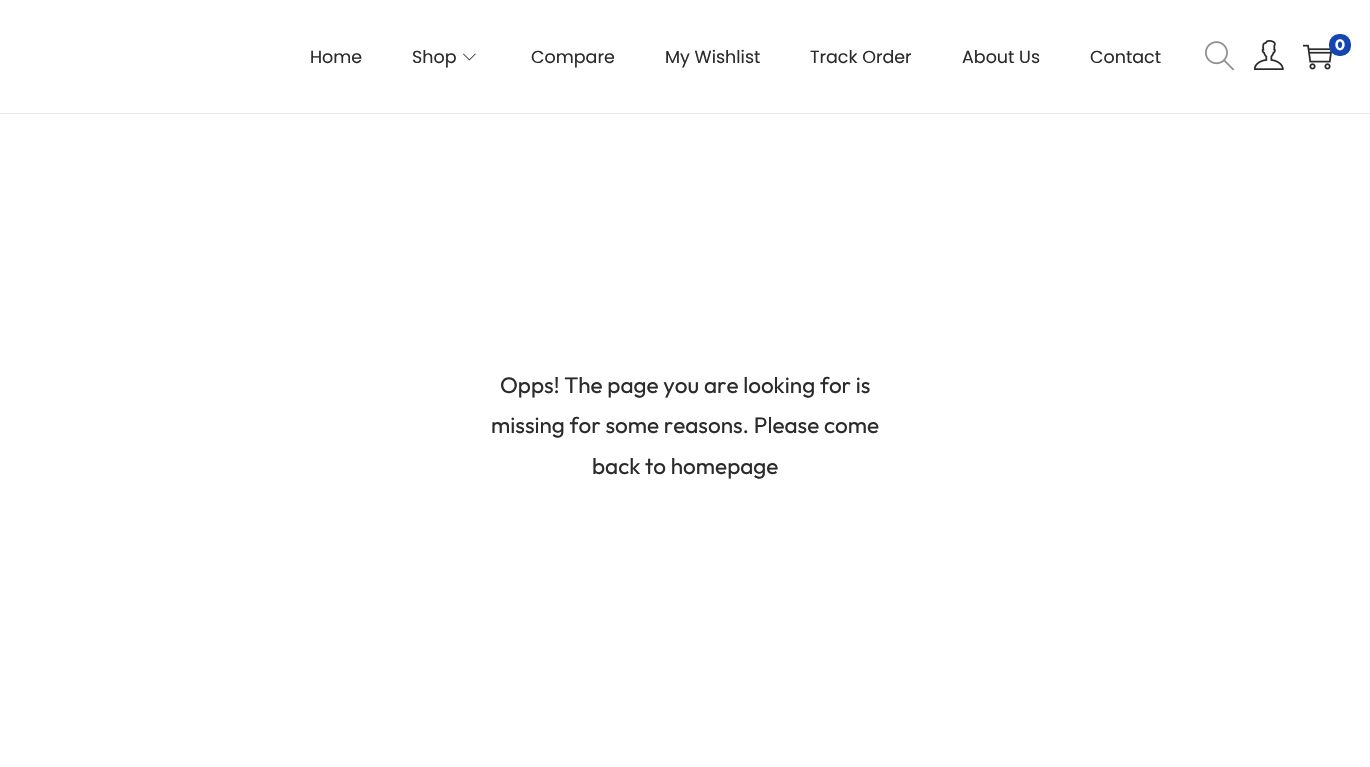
#include "include/core/SkBlurTypes.h"
#include "include/core/SkCanvas.h"
#include "include/core/SkData.h"
#include "include/core/SkFont.h"
#include "include/core/SkFontMgr.h"
#include "include/core/SkImage.h"
#include "include/core/SkMaskFilter.h"
#include "include/core/SkPaint.h"
#include "include/core/SkPathBuilder.h"
#include "include/core/SkTextBlob.h"
#include "include/effects/SkDashPathEffect.h"
#include "include/effects/SkGradientShader.h"
#include "include/utils/SkParsePath.h"

extern sk_sp<SkFontMgr> fontMgr;

static SkFont font(const char* family, int weight, float size, bool italic = false) {
    SkFontStyle style(weight, SkFontStyle::kNormal_Width,
        italic ? SkFontStyle::kItalic_Slant : SkFontStyle::kUpright_Slant);
    SkFont result(fontMgr->matchFamilyStyle(family, style), size);
    result.setSubpixel(true);
    return result;
}

static void drawLabel(SkCanvas* canvas, const char* s, float x, float y, const SkFont& font, SkColor color) {
    SkPaint ink(SkColor4f::FromColor(color));
    ink.setAntiAlias(true);
    canvas->drawString(s, x, y, font, ink);
}

static void fillRect(SkCanvas* canvas, float x, float y, float w, float h, SkColor color) {
    SkPaint ink(SkColor4f::FromColor(color));
    ink.setAntiAlias(true);
    canvas->drawRect(SkRect::MakeXYWH(x, y, w, h), ink);
}

static void fillRRect(SkCanvas* canvas, float x, float y, float w, float h, float radius, SkColor color) {
    SkPaint ink(SkColor4f::FromColor(color));
    ink.setAntiAlias(true);
    canvas->drawRoundRect(SkRect::MakeXYWH(x, y, w, h), radius, radius, ink);
}

static void drawPhoto(SkCanvas* canvas, const char* path, float x, float y, float w, float h) {
    auto image = SkImages::DeferredFromEncodedData(SkData::MakeFromFileName(path));
    canvas->drawImageRect(image, SkRect::MakeXYWH(x, y, w, h), SkSamplingOptions());
}

void draw(SkCanvas* canvas) {
    SkPaint paint;
    paint.setAntiAlias(true);
    canvas->clear(0xFFFFFFFF);
    fillRect(canvas, 0, 113, 1370, 1, 0xFFEAEAEA);
    drawPhoto(canvas, "assets/img1.png", 1205, 41, 30, 30);
    drawPhoto(canvas, "assets/img2.png", 1254, 40, 30, 30);
    drawPhoto(canvas, "assets/img3.png", 1303, 44, 29, 26);
    fillRRect(canvas, 1329, 34, 22, 22, 10, 0xFF1346AF);
    SkFont font1 = font("Outfit", 700, 15);
    drawLabel(canvas, "0", 1335, 50, font1, 0xFFFFFFFF);
    SkFont font2 = font("Poppins", 400, 17.5f);
    drawLabel(canvas, "Home", 310, 63, font2, 0xFF2B2B2B);
    drawLabel(canvas, "Shop", 412, 63, font2, 0xFF2B2B2B);
    drawPhoto(canvas, "assets/img4.png", 463, 53, 13, 8);
    drawLabel(canvas, "Compare", 531, 63, font2, 0xFF2B2B2B);
    drawLabel(canvas, "My Wishlist", 665, 63, font2, 0xFF2B2B2B);
    drawLabel(canvas, "Track Order", 810, 63, font2, 0xFF2B2B2B);
    drawLabel(canvas, "About Us", 962, 63, font2, 0xFF2B2B2B);
    drawLabel(canvas, "Contact", 1090, 63, font2, 0xFF2B2B2B);
    SkFont font3 = font("Outfit", 400, 22.5f);
    drawLabel(canvas, "Opps! The page you are looking for is", 500, 393, font3, 0xFF2B2B2B);
    drawLabel(canvas, "missing for some reasons. Please come", 491, 433, font3, 0xFF2B2B2B);
    drawLabel(canvas, "back to homepage", 592, 474, font3, 0xFF2B2B2B);
}
